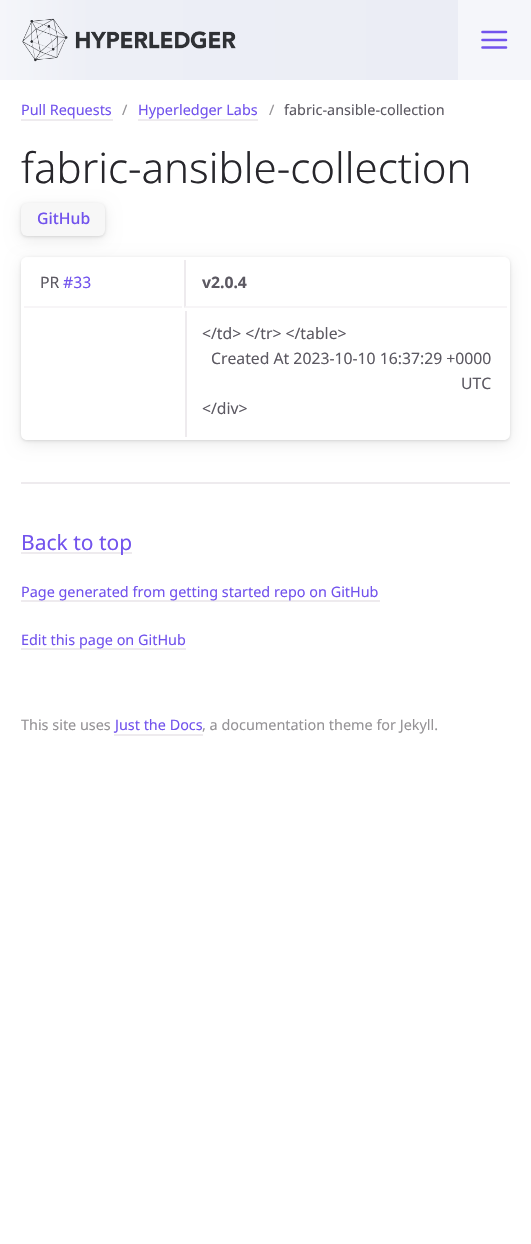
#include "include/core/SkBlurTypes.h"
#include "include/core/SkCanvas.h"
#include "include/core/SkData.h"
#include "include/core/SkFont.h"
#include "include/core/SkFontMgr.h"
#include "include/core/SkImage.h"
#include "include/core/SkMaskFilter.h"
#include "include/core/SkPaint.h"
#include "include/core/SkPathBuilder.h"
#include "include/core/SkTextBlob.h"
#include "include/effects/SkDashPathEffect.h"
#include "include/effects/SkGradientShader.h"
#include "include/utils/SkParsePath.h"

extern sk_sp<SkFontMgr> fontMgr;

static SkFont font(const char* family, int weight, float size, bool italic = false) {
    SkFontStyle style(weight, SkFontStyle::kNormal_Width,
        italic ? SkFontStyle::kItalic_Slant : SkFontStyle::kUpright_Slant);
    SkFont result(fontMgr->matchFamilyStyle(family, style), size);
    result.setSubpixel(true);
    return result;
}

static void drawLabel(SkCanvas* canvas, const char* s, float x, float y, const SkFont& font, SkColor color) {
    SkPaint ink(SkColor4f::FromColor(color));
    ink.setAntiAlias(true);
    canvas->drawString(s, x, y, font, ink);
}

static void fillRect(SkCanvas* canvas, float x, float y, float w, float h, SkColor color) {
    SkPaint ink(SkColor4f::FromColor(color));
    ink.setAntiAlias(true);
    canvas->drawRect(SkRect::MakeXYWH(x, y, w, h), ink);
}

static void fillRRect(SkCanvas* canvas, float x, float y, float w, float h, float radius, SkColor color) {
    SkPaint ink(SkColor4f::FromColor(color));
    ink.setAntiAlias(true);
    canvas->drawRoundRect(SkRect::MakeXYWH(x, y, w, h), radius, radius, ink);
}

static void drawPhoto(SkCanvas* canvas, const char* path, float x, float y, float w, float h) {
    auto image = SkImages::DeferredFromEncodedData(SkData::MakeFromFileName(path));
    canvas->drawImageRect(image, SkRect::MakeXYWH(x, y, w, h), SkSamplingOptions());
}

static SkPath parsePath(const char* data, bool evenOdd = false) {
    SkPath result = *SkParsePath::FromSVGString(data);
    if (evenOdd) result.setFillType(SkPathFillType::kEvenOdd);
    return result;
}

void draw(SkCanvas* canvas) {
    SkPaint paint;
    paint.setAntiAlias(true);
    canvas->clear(0xFFFFFFFF);
    SkFont font1 = font("Noto Sans", 400, 14.4f);
    drawLabel(canvas, "Pull Requests", 21, 115, font1, 0xFF7253ED);
    fillRect(canvas, 21, 119, 92, 2, 0xFFEEEBEE);
    drawLabel(canvas, "/", 122, 115, font1, 0xFF959396);
    drawLabel(canvas, "Hyperledger Labs", 138, 115, font1, 0xFF7253ED);
    fillRect(canvas, 138, 119, 120, 2, 0xFFEEEBEE);
    drawLabel(canvas, "/", 269, 115, font1, 0xFF959396);
    drawLabel(canvas, "fabric-ansible-collection", 284, 115, font1, 0xFF5C5962);
    SkFont font2 = font("Noto Sans", 300, 42);
    drawLabel(canvas, "fabric-ansible-collection", 21, 183, font2, 0xFF27262B);
    paint.setColor(0x14000000);
    paint.setMaskFilter(SkMaskFilter::MakeBlur(kNormal_SkBlurStyle, 7.5f));
    canvas->drawRoundRect(SkRect::MakeXYWH(21, 207, 84, 33), 6, 6, paint);
    paint.setMaskFilter(nullptr);
    paint.setColor(0x1F000000);
    paint.setMaskFilter(SkMaskFilter::MakeBlur(kNormal_SkBlurStyle, 1.5f));
    canvas->drawRoundRect(SkRect::MakeXYWH(21, 204, 84, 33), 6, 6, paint);
    paint.setMaskFilter(nullptr);
    fillRRect(canvas, 21, 203, 84, 33, 6, 0xFFF7F7F7);
    SkFont font3 = font("Noto Sans", 500, 15.75f);
    drawLabel(canvas, "GitHub", 37, 224, font3, 0xFF7253ED);
    canvas->save();
    canvas->clipPath(parsePath("M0 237H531V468H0ZM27 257H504C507.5 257 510 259.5 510 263V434C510 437.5 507.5 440 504 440H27C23.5 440 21 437.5 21 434V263C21 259.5 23.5 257 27 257Z", true), true);
    paint.setColor(0x14000000);
    paint.setMaskFilter(SkMaskFilter::MakeBlur(kNormal_SkBlurStyle, 7.5f));
    canvas->drawRoundRect(SkRect::MakeXYWH(21, 261, 489, 183), 6, 6, paint);
    paint.setMaskFilter(nullptr);
    canvas->restore();
    canvas->save();
    canvas->clipPath(parsePath("M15 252H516V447H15ZM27 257H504C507.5 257 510 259.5 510 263V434C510 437.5 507.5 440 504 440H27C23.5 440 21 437.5 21 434V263C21 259.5 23.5 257 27 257Z", true), true);
    paint.setColor(0x1F000000);
    paint.setMaskFilter(SkMaskFilter::MakeBlur(kNormal_SkBlurStyle, 1.5f));
    canvas->drawRoundRect(SkRect::MakeXYWH(21, 258, 489, 183), 6, 6, paint);
    paint.setMaskFilter(nullptr);
    canvas->restore();
    fillRect(canvas, 24, 306, 158, 2, 0xFFF7F5F7);
    SkFont font4 = font("Noto Sans", 400, 15.75f);
    drawLabel(canvas, "PR", 40, 288, font4, 0xFF5C5962);
    drawLabel(canvas, "#33", 63, 288, font4, 0xFF7253ED);
    paint.setColor(0xFFF7F5F7);
    canvas->drawPath(parsePath("M507 308H184L186 306H507Z"), paint);
    paint.setColor(0xFFEEEBEE);
    canvas->drawPath(parsePath("M184 308V260H186V306Z"), paint);
    SkFont font5 = font("Noto Sans", 700, 15.75f);
    drawLabel(canvas, "v2.0.4", 202, 288, font5, 0xFF5C5962);
    fillRect(canvas, 185, 311, 2, 126, 0xFFEEEBEE);
    drawLabel(canvas, "</td> </tr> </table>", 202, 339, font4, 0xFF5C5962);
    drawLabel(canvas, "Created At 2023-10-10 16:37:29 +0000", 211, 364, font4, 0xFF5C5962);
    drawLabel(canvas, "UTC", 461, 389, font4, 0xFF5C5962);
    drawLabel(canvas, "</div>", 202, 414, font4, 0xFF5C5962);
    fillRect(canvas, 21, 482, 489, 2, 0xFFEEEBEE);
    fillRect(canvas, 21, 552, 111, 2, 0xFFEEEBEE);
    SkFont font6 = font("Noto Sans", 400, 21);
    drawLabel(canvas, "Back to top", 21, 550, font6, 0xFF7253ED);
    fillRect(canvas, 21, 600, 359, 2, 0xFFEEEBEE);
    drawLabel(canvas, "Page generated from getting started repo on GitHub", 21, 597, font1, 0xFF7253ED);
    fillRect(canvas, 21, 648, 165, 2, 0xFFEEEBEE);
    drawLabel(canvas, "Edit this page on GitHub", 21, 645, font1, 0xFF7253ED);
    fillRect(canvas, 458, 0, 73, 80, 0xFFF5F6FA);
    {
        const SkColor colors[] = {0xFFEBEDF5, 0xFFEDEFF6, 0xFFF5F6FA};
        const float stops[] = {0, 0.8f, 1};
        const SkPoint ends[] = {{458, 40}, {0, 40}};
        paint.setShader(SkGradientShader::MakeLinear(ends, colors, stops, 3, SkTileMode::kClamp));
        paint.setAlpha(255);
    }
    canvas->drawRect(SkRect::MakeXYWH(0, 0, 458, 80), paint);
    drawPhoto(canvas, "assets/img1.png", 22, 18, 214, 44);
    paint.setStroke(true);
    paint.setStrokeWidth(2.6f);
    paint.setStrokeCap(SkPaint::kRound_Cap);
    paint.setStrokeJoin(SkPaint::kRound_Join);
    paint.setShader(nullptr);
    paint.setColor(0xFF7253ED);
    canvas->drawPath(parsePath("M482.5 40H506M482.5 32H506M482.5 47.5H506"), paint);
    drawLabel(canvas, "This site uses", 21, 730, font1, 0xFF959396);
    drawLabel(canvas, "Just the Docs", 115, 730, font1, 0xFF7253ED);
    fillRect(canvas, 114, 734, 89, 2, 0xFFEEEBEE);
    drawLabel(canvas, ", a documentation theme for Jekyll.", 202, 730, font1, 0xFF959396);
}
